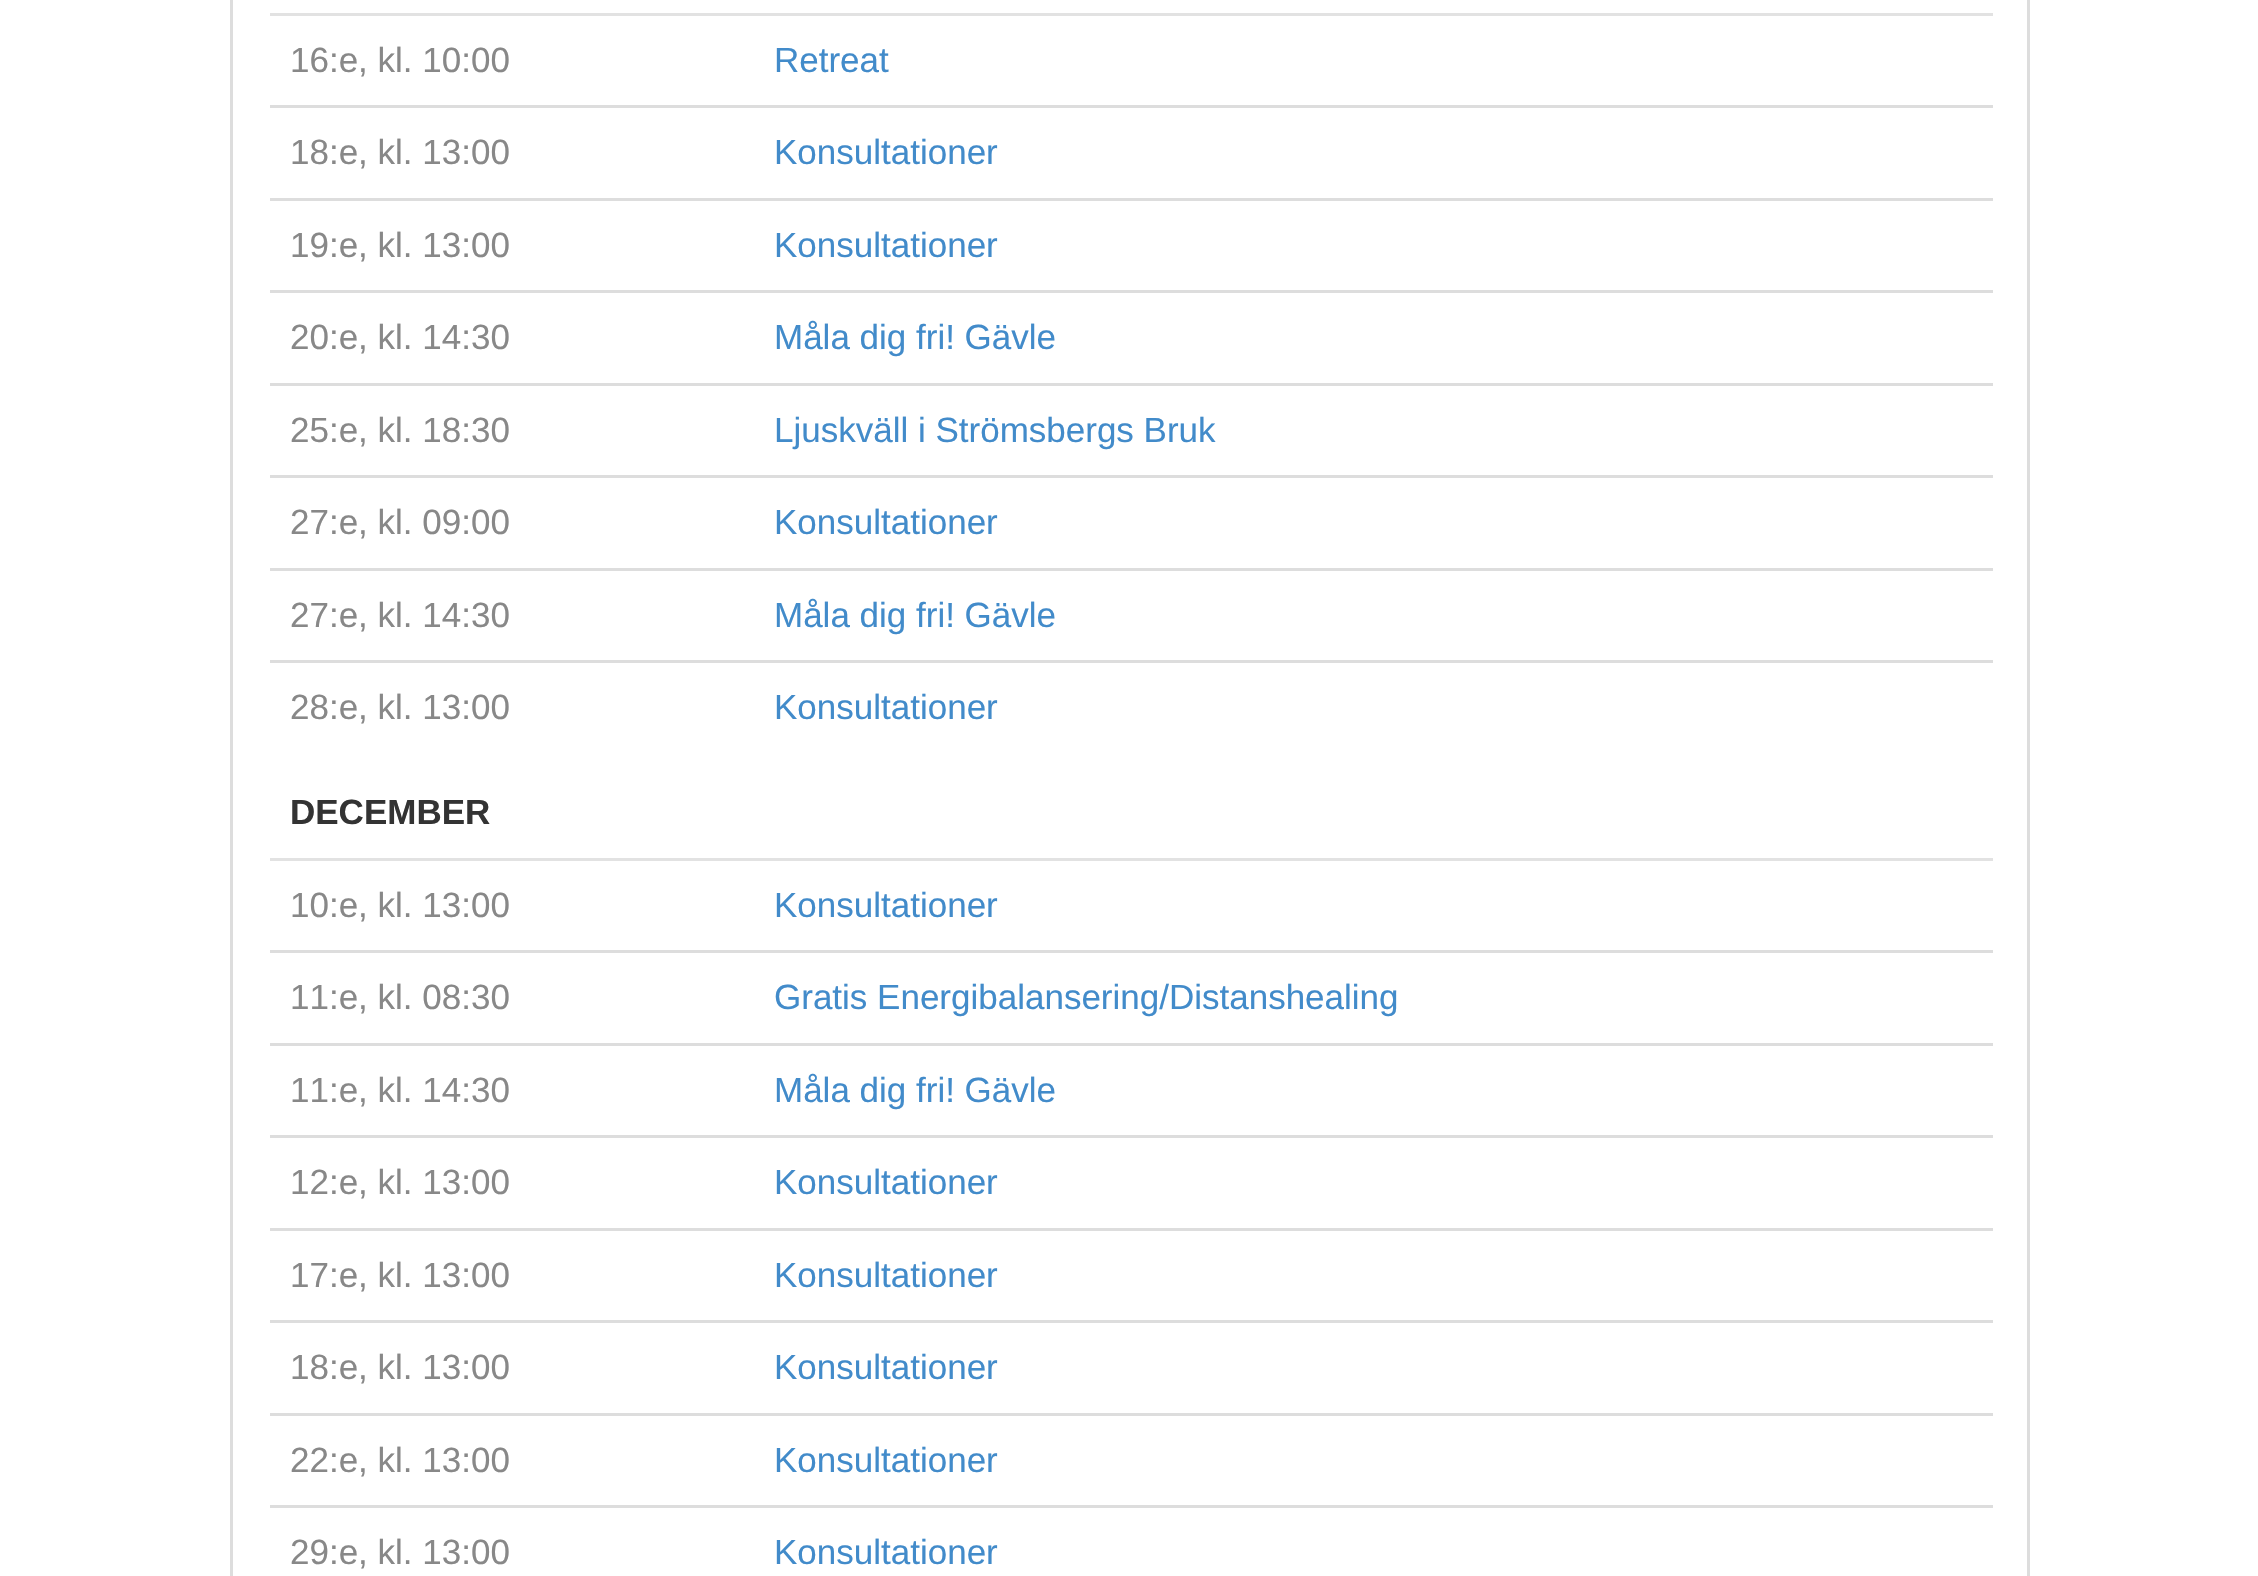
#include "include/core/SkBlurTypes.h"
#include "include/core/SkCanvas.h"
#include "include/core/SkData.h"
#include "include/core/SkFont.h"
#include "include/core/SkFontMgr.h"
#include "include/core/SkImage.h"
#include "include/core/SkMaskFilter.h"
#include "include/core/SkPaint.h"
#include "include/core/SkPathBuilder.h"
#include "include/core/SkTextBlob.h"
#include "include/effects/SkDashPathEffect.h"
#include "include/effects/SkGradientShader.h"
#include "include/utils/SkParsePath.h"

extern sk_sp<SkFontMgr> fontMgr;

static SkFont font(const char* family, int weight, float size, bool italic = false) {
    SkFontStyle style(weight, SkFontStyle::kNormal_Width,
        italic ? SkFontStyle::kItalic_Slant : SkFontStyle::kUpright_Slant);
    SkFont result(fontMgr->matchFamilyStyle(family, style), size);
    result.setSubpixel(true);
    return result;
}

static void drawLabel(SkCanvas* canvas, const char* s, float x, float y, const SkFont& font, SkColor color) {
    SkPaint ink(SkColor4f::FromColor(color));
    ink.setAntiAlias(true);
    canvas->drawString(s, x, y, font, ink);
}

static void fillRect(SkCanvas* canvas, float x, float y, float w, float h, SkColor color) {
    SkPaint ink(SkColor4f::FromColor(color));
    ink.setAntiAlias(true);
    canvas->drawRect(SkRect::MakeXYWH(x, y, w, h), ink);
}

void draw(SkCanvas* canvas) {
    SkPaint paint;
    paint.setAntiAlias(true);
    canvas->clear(0xFFFFFFFF);
    paint.setStroke(true);
    paint.setStrokeWidth(3);
    paint.setColor(0xFFDDDDDD);
    canvas->drawRect(SkRect::MakeXYWH(231.5f, -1.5f, 1797, 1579), paint);
    fillRect(canvas, 270, 13, 1723, 3, 0xFFE2E2E2);
    SkFont font1 = font("Liberation Sans", 400, 35);
    drawLabel(canvas, "16:e, kl. 10:00", 290, 72, font1, 0xFF888888);
    drawLabel(canvas, "Retreat", 774, 72, font1, 0xFF428BCA);
    drawLabel(canvas, "18:e, kl. 13:00", 290, 164, font1, 0xFF888888);
    fillRect(canvas, 270, 105, 1723, 3, 0xFFDDDDDD);
    drawLabel(canvas, "Konsultationer", 774, 164, font1, 0xFF428BCA);
    drawLabel(canvas, "19:e, kl. 13:00", 290, 257, font1, 0xFF888888);
    fillRect(canvas, 270, 198, 1723, 3, 0xFFDDDDDD);
    drawLabel(canvas, "Konsultationer", 774, 257, font1, 0xFF428BCA);
    drawLabel(canvas, "20:e, kl. 14:30", 290, 349, font1, 0xFF888888);
    fillRect(canvas, 270, 290, 1723, 3, 0xFFDDDDDD);
    drawLabel(canvas, "Måla dig fri! Gävle", 774, 349, font1, 0xFF428BCA);
    drawLabel(canvas, "25:e, kl. 18:30", 290, 442, font1, 0xFF888888);
    fillRect(canvas, 270, 383, 1723, 3, 0xFFDDDDDD);
    drawLabel(canvas, "Ljuskväll i Strömsbergs Bruk", 774, 442, font1, 0xFF428BCA);
    drawLabel(canvas, "27:e, kl. 09:00", 290, 534, font1, 0xFF888888);
    fillRect(canvas, 270, 475, 1723, 3, 0xFFDDDDDD);
    drawLabel(canvas, "Konsultationer", 774, 534, font1, 0xFF428BCA);
    drawLabel(canvas, "27:e, kl. 14:30", 290, 627, font1, 0xFF888888);
    fillRect(canvas, 270, 568, 1723, 3, 0xFFDDDDDD);
    drawLabel(canvas, "Måla dig fri! Gävle", 774, 627, font1, 0xFF428BCA);
    drawLabel(canvas, "28:e, kl. 13:00", 290, 719, font1, 0xFF888888);
    fillRect(canvas, 270, 660, 1723, 3, 0xFFDDDDDD);
    drawLabel(canvas, "Konsultationer", 774, 719, font1, 0xFF428BCA);
    fillRect(canvas, 270, 858, 1723, 3, 0xFFE2E2E2);
    SkFont font2 = font("Liberation Sans", 700, 35);
    drawLabel(canvas, "DECEMBER", 290, 824, font2, 0xFF333333);
    drawLabel(canvas, "10:e, kl. 13:00", 290, 917, font1, 0xFF888888);
    drawLabel(canvas, "Konsultationer", 774, 917, font1, 0xFF428BCA);
    drawLabel(canvas, "11:e, kl. 08:30", 290, 1009, font1, 0xFF888888);
    fillRect(canvas, 270, 950, 1723, 3, 0xFFDDDDDD);
    drawLabel(canvas, "Gratis Energibalansering/Distanshealing", 774, 1009, font1, 0xFF428BCA);
    drawLabel(canvas, "11:e, kl. 14:30", 290, 1102, font1, 0xFF888888);
    fillRect(canvas, 270, 1043, 1723, 3, 0xFFDDDDDD);
    drawLabel(canvas, "Måla dig fri! Gävle", 774, 1102, font1, 0xFF428BCA);
    drawLabel(canvas, "12:e, kl. 13:00", 290, 1194, font1, 0xFF888888);
    fillRect(canvas, 270, 1135, 1723, 3, 0xFFDDDDDD);
    drawLabel(canvas, "Konsultationer", 774, 1194, font1, 0xFF428BCA);
    drawLabel(canvas, "17:e, kl. 13:00", 290, 1287, font1, 0xFF888888);
    fillRect(canvas, 270, 1228, 1723, 3, 0xFFDDDDDD);
    drawLabel(canvas, "Konsultationer", 774, 1287, font1, 0xFF428BCA);
    drawLabel(canvas, "18:e, kl. 13:00", 290, 1379, font1, 0xFF888888);
    fillRect(canvas, 270, 1320, 1723, 3, 0xFFDDDDDD);
    drawLabel(canvas, "Konsultationer", 774, 1379, font1, 0xFF428BCA);
    drawLabel(canvas, "22:e, kl. 13:00", 290, 1472, font1, 0xFF888888);
    fillRect(canvas, 270, 1413, 1723, 3, 0xFFDDDDDD);
    drawLabel(canvas, "Konsultationer", 774, 1472, font1, 0xFF428BCA);
    drawLabel(canvas, "29:e, kl. 13:00", 290, 1564, font1, 0xFF888888);
    fillRect(canvas, 270, 1505, 1723, 3, 0xFFDDDDDD);
    drawLabel(canvas, "Konsultationer", 774, 1564, font1, 0xFF428BCA);
}
